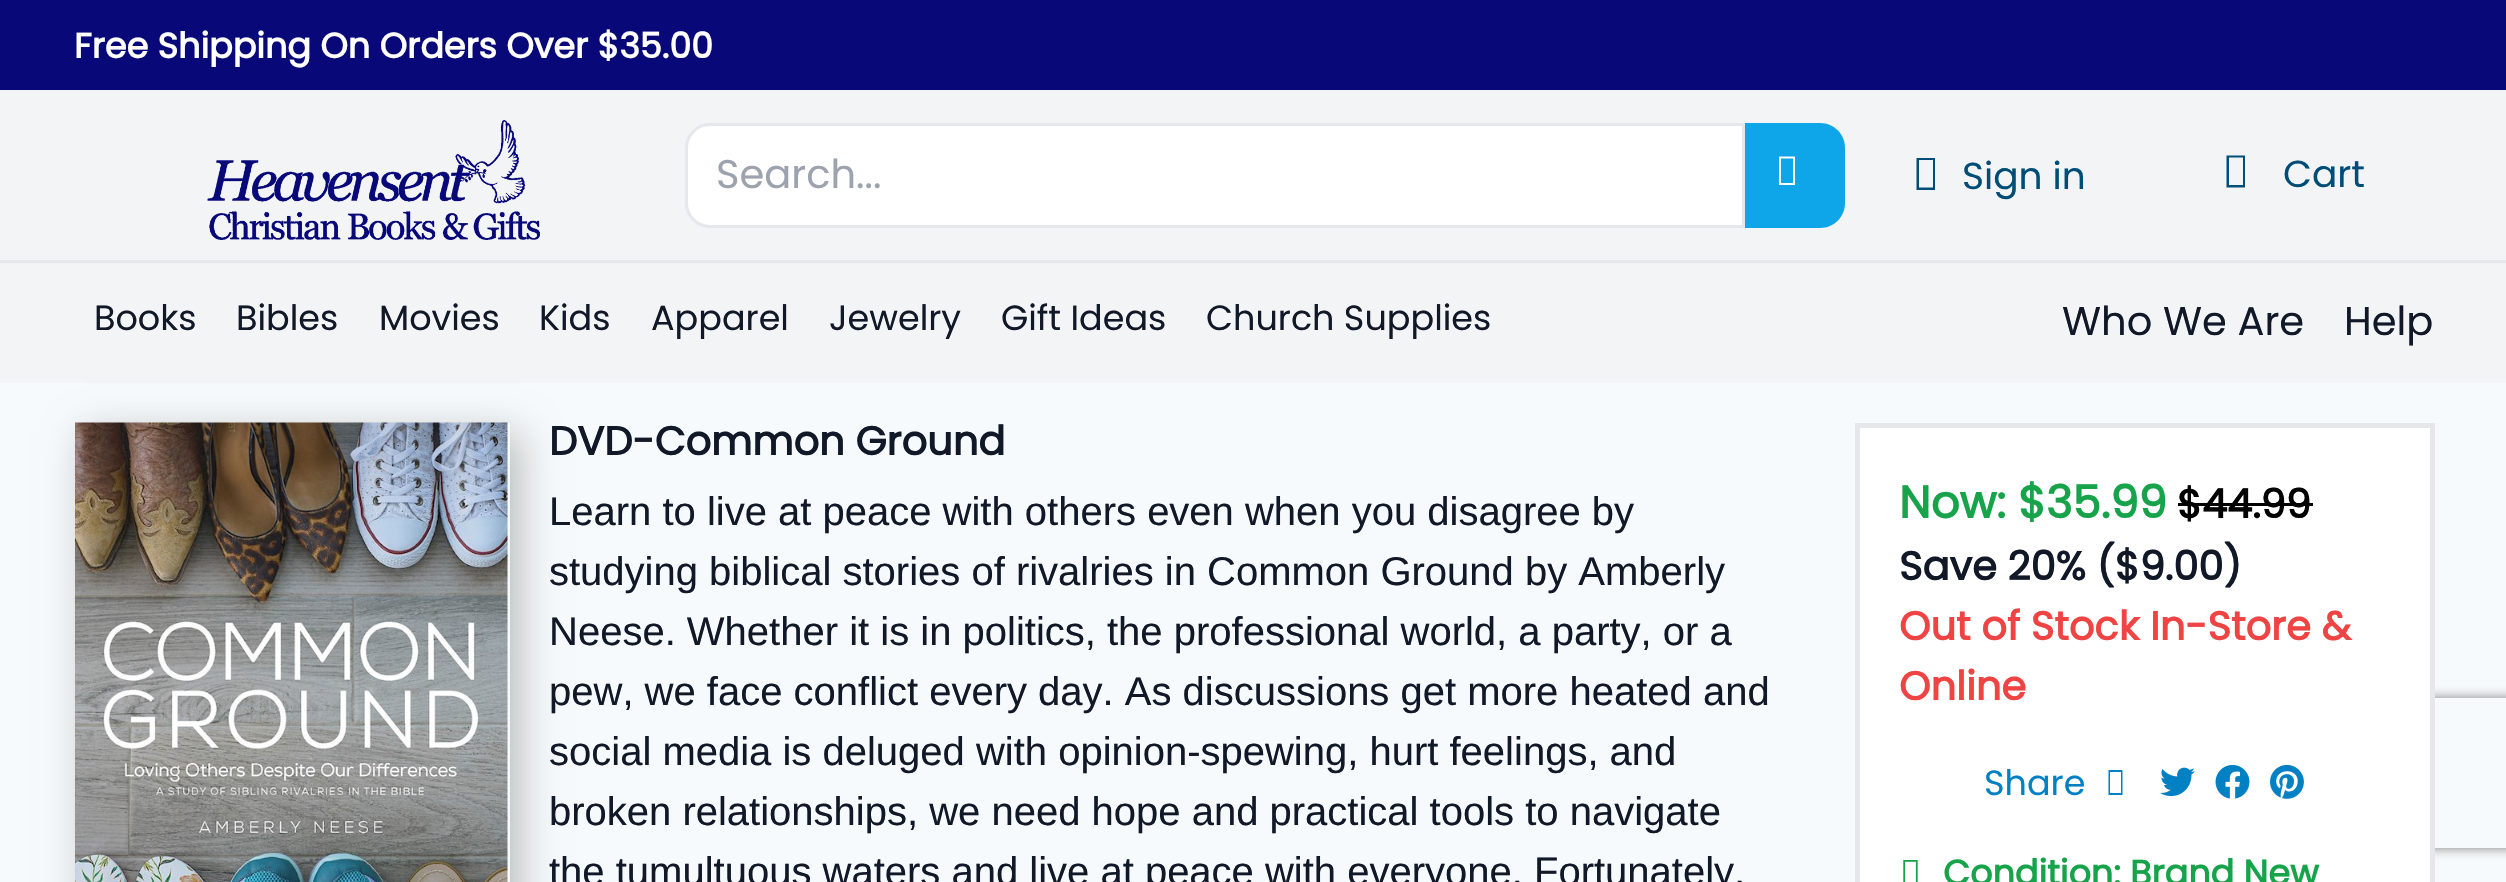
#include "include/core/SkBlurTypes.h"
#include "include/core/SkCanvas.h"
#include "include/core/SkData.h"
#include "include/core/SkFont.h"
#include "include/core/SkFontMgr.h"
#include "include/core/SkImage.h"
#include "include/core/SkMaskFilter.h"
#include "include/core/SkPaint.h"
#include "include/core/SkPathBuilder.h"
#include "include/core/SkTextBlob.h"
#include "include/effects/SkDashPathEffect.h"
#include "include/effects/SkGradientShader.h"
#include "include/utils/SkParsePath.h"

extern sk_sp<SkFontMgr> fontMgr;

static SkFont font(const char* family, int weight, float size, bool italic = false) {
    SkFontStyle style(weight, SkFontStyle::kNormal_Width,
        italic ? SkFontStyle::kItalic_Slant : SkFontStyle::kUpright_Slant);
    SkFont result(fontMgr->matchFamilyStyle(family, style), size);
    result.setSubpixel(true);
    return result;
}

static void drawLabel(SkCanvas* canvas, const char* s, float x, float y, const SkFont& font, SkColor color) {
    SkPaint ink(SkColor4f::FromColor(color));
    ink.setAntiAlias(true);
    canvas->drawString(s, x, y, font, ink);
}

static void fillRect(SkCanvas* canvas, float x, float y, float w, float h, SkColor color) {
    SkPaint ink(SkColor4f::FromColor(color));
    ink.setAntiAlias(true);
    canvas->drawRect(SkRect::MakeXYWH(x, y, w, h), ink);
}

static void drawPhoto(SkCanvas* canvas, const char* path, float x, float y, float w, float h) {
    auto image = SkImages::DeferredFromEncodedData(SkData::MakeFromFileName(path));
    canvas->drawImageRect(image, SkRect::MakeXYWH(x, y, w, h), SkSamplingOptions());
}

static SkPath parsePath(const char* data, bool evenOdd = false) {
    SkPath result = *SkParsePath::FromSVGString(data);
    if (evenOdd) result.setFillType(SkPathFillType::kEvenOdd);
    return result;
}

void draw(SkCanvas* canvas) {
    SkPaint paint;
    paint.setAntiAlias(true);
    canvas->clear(0xFFF7FAFC);
    fillRect(canvas, 0, 0, 2506, 90, 0xFF080879);
    SkFont font1 = font("Poppins", 700, 35);
    drawLabel(canvas, "Free Shipping On Orders Over $35.00", 74, 58, font1, 0xFFFFFFFF);
    fillRect(canvas, 0, 90, 2506, 170, 0xFFF3F4F6);
    fillRect(canvas, 0, 260, 2506, 3, 0xFFE5E7EB);
    drawPhoto(canvas, "assets/img1.png", 207, 120, 333, 120);
    paint.setColor(0xFFFFFFFF);
    canvas->drawPath(parsePath("M710 124.5H1743.5V226.5H710C697 226.5 686.5 216 686.5 203V148C686.5 135 697 124.5 710 124.5Z"), paint);
    paint.setStroke(true);
    paint.setStrokeWidth(3);
    paint.setColor(0xFFE5E7EB);
    canvas->drawPath(parsePath("M710 124.5H1743.5V226.5H710C697 226.5 686.5 216 686.5 203V148C686.5 135 697 124.5 710 124.5Z"), paint);
    SkFont font2 = font("Poppins", 400, 40);
    drawLabel(canvas, "Search...", 716, 188, font2, 0xFF9CA3AF);
    paint.setStroke(false);
    paint.setColor(0xFF0EA5E9);
    canvas->drawPath(parsePath("M1745 123H1820C1834 123 1845 134 1845 148V203C1845 217 1834 228 1820 228H1745Z"), paint);
    paint.setColor(0xFFFFFFFF);
    canvas->drawPath(parsePath("M1779 185V156.5H1795V185ZM1781 183H1793V158.5H1781Z"), paint);
    paint.setColor(0xFF004E78);
    canvas->drawPath(parsePath("M1916.5 190V158H1935V190ZM1919 187.5H1933V160H1919Z"), paint);
    SkFont font3 = font("Poppins", 400, 37.5f);
    drawLabel(canvas, "Sign in", 1962, 189, font3, 0xFF004E78);
    canvas->drawPath(parsePath("M2226.5 187.5V155.5H2245V187.5ZM2229 185H2243V157.5H2229Z"), paint);
    drawLabel(canvas, "Cart", 2283, 187, font3, 0xFF004E78);
    fillRect(canvas, 0, 263, 2506, 120, 0xFFF3F4F6);
    SkFont font4 = font("Poppins", 400, 35);
    drawLabel(canvas, "Books", 94, 330, font4, 0xFF111827);
    drawLabel(canvas, "Bibles", 236, 330, font4, 0xFF111827);
    drawLabel(canvas, "Movies", 379, 330, font4, 0xFF111827);
    drawLabel(canvas, "Kids", 539, 330, font4, 0xFF111827);
    drawLabel(canvas, "Apparel", 651, 330, font4, 0xFF111827);
    drawLabel(canvas, "Jewelry", 829, 330, font4, 0xFF111827);
    drawLabel(canvas, "Gift Ideas", 1001, 330, font4, 0xFF111827);
    drawLabel(canvas, "Church Supplies", 1206, 330, font4, 0xFF111827);
    drawLabel(canvas, "Who We Are", 2062, 335, font2, 0xFF111827);
    drawLabel(canvas, "Help", 2344, 335, font2, 0xFF111827);
    canvas->save();
    canvas->clipPath(parsePath("M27 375H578V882H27ZM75 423H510V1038H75Z", true), true);
    paint.setColor(0x40000000);
    paint.setMaskFilter(SkMaskFilter::MakeBlur(kNormal_SkBlurStyle, 19));
    canvas->drawRect(SkRect::MakeXYWH(85, 433, 435, 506), paint);
    paint.setMaskFilter(nullptr);
    canvas->restore();
    drawPhoto(canvas, "assets/img2.png", 75, 422, 433, 460);
    SkFont font5 = font("Poppins", 700, 40);
    drawLabel(canvas, "DVD-Common Ground", 549, 455, font5, 0xFF111827);
    SkFont font6 = font("Liberation Sans", 400, 40);
    drawLabel(canvas, "Learn to live at peace with others even when you disagree by", 549, 525, font6, 0xFF111827);
    drawLabel(canvas, "studying biblical stories of rivalries in Common Ground by Amberly", 549, 585, font6, 0xFF111827);
    drawLabel(canvas, "Neese. Whether it is in politics, the professional world, a party, or a", 549, 645, font6, 0xFF111827);
    drawLabel(canvas, "pew, we face conflict every day. As discussions get more heated and", 549, 705, font6, 0xFF111827);
    drawLabel(canvas, "social media is deluged with opinion-spewing, hurt feelings, and", 549, 765, font6, 0xFF111827);
    drawLabel(canvas, "broken relationships, we need hope and practical tools to navigate", 549, 825, font6, 0xFF111827);
    drawLabel(canvas, "the tumultuous waters and live at peace with everyone. Fortunately,", 549, 885, font6, 0xFF111827);
    canvas->save();
    canvas->clipPath(parsePath("M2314 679H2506V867H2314ZM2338 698H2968C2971 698 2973 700 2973 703V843C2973 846 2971 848 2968 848H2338C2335 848 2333 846 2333 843V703C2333 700 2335 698 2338 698Z", true), true);
    paint.setColor(0xFF808080);
    paint.setMaskFilter(SkMaskFilter::MakeBlur(kNormal_SkBlurStyle, 6));
    canvas->drawRoundRect(SkRect::MakeXYWH(2333, 698, 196, 150), 5, 5, paint);
    paint.setMaskFilter(nullptr);
    canvas->restore();
    paint.setColor(0xFFFFFFFF);
    canvas->drawRect(SkRect::MakeXYWH(1857.5f, 425.5f, 575, 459), paint);
    paint.setStroke(true);
    paint.setStrokeWidth(5);
    paint.setColor(0xFFE5E7EB);
    canvas->drawRect(SkRect::MakeXYWH(1857.5f, 425.5f, 575, 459), paint);
    SkFont font7 = font("Poppins", 700, 45);
    drawLabel(canvas, "Now: $35.99", 1899, 518, font7, 0xFF16A34A);
    drawLabel(canvas, "$44.99", 2177, 518, font5, 0xFF000000);
    fillRect(canvas, 2178, 503, 135, 3, 0xFF000000);
    drawLabel(canvas, "Save 20% ($9.00)", 1899, 580, font5, 0xFF111827);
    drawLabel(canvas, "Out of Stock In-Store &", 1899, 640, font5, 0xFFEF4444);
    drawLabel(canvas, "Online", 1899, 700, font5, 0xFFEF4444);
    drawLabel(canvas, "Share", 1984, 795, font4, 0xFF0280C4);
    paint.setStroke(false);
    paint.setColor(0xFF0280C4);
    canvas->drawPath(parsePath("M2108.5 795V770H2122.5V795ZM2110 793H2121V772H2110Z"), paint);
    drawPhoto(canvas, "assets/img3.png", 2160, 767, 35, 30);
    drawPhoto(canvas, "assets/img4.png", 2215, 764, 35, 35);
    drawPhoto(canvas, "assets/img5.png", 2270, 764, 34, 35);
    drawPhoto(canvas, "assets/img6.png", 1903, 860, 15, 22);
    drawLabel(canvas, "Condition: Brand New", 1943, 885, font1, 0xFF16A34A);
}
